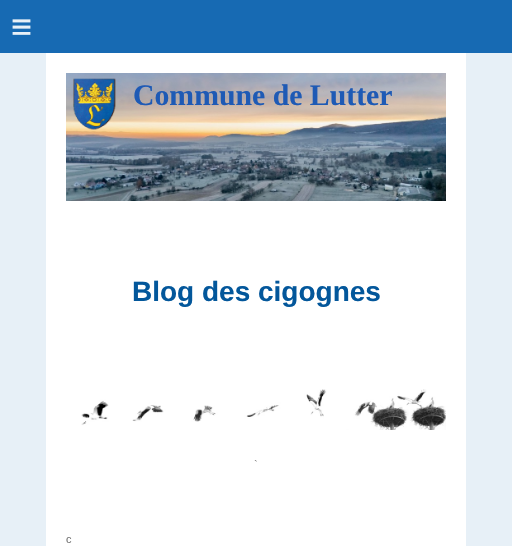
#include "include/core/SkBlurTypes.h"
#include "include/core/SkCanvas.h"
#include "include/core/SkData.h"
#include "include/core/SkFont.h"
#include "include/core/SkFontMgr.h"
#include "include/core/SkImage.h"
#include "include/core/SkMaskFilter.h"
#include "include/core/SkPaint.h"
#include "include/core/SkPathBuilder.h"
#include "include/core/SkTextBlob.h"
#include "include/effects/SkDashPathEffect.h"
#include "include/effects/SkGradientShader.h"
#include "include/utils/SkParsePath.h"

extern sk_sp<SkFontMgr> fontMgr;

static SkFont font(const char* family, int weight, float size, bool italic = false) {
    SkFontStyle style(weight, SkFontStyle::kNormal_Width,
        italic ? SkFontStyle::kItalic_Slant : SkFontStyle::kUpright_Slant);
    SkFont result(fontMgr->matchFamilyStyle(family, style), size);
    result.setSubpixel(true);
    return result;
}

static void drawLabel(SkCanvas* canvas, const char* s, float x, float y, const SkFont& font, SkColor color) {
    SkPaint ink(SkColor4f::FromColor(color));
    ink.setAntiAlias(true);
    canvas->drawString(s, x, y, font, ink);
}

static void drawTracked(SkCanvas* canvas, const char* s, float x, float y, const SkFont& font, const SkPaint& ink, float letter, float word) {
    std::vector<SkGlyphID> glyphs(font.countText(s, strlen(s), SkTextEncoding::kUTF8));
    std::vector<float> xs(glyphs.size());
    font.textToGlyphs(s, strlen(s), SkTextEncoding::kUTF8, glyphs);
    font.getXPos(glyphs, xs, x);
    float extra = 0;
    for (size_t i = 0; i < glyphs.size(); i++) {
        xs[i] += extra;
        extra += letter + word * (glyphs[i] == font.unicharToGlyph(' '));
    }
    canvas->drawTextBlob(SkTextBlob::MakeFromPosHGlyphs(glyphs, xs, y, font), 0, 0, ink);
}

static void fillRect(SkCanvas* canvas, float x, float y, float w, float h, SkColor color) {
    SkPaint ink(SkColor4f::FromColor(color));
    ink.setAntiAlias(true);
    canvas->drawRect(SkRect::MakeXYWH(x, y, w, h), ink);
}

static void drawPhoto(SkCanvas* canvas, const char* path, float x, float y, float w, float h) {
    auto image = SkImages::DeferredFromEncodedData(SkData::MakeFromFileName(path));
    canvas->drawImageRect(image, SkRect::MakeXYWH(x, y, w, h), SkSamplingOptions());
}

void draw(SkCanvas* canvas) {
    SkPaint paint;
    paint.setAntiAlias(true);
    canvas->clear(0xFFE7F0F7);
    fillRect(canvas, 0, 0, 512, 53, 0xFF176AB3);
    SkFont font1 = font("Liberation Sans", 400, 36);
    paint.setColor(0xFFE8F0F7);
    drawTracked(canvas, "≡", 11, 39, font1, paint, 10, 0);
    fillRect(canvas, 46, 53, 420, 493, 0xFFFFFFFF);
    drawPhoto(canvas, "assets/img1.png", 66, 73, 380, 128);
    drawPhoto(canvas, "assets/img2.png", 73, 78, 43, 52);
    SkFont font2 = font("Liberation Serif", 700, 29.75f);
    drawLabel(canvas, "Commune de Lutter", 133, 105, font2, 0xFF1E5AB5);
    SkFont font3 = font("Liberation Sans", 700, 28);
    drawLabel(canvas, "Blog des cigognes", 132, 301, font3, 0xFF03579B);
    drawPhoto(canvas, "assets/img3.png", 81, 389, 365, 41);
    SkFont font4 = font("Liberation Sans", 400, 11);
    drawLabel(canvas, "`", 254, 468, font4, 0xFF757575);
    drawLabel(canvas, "c", 66, 543, font4, 0xFF757575);
}
